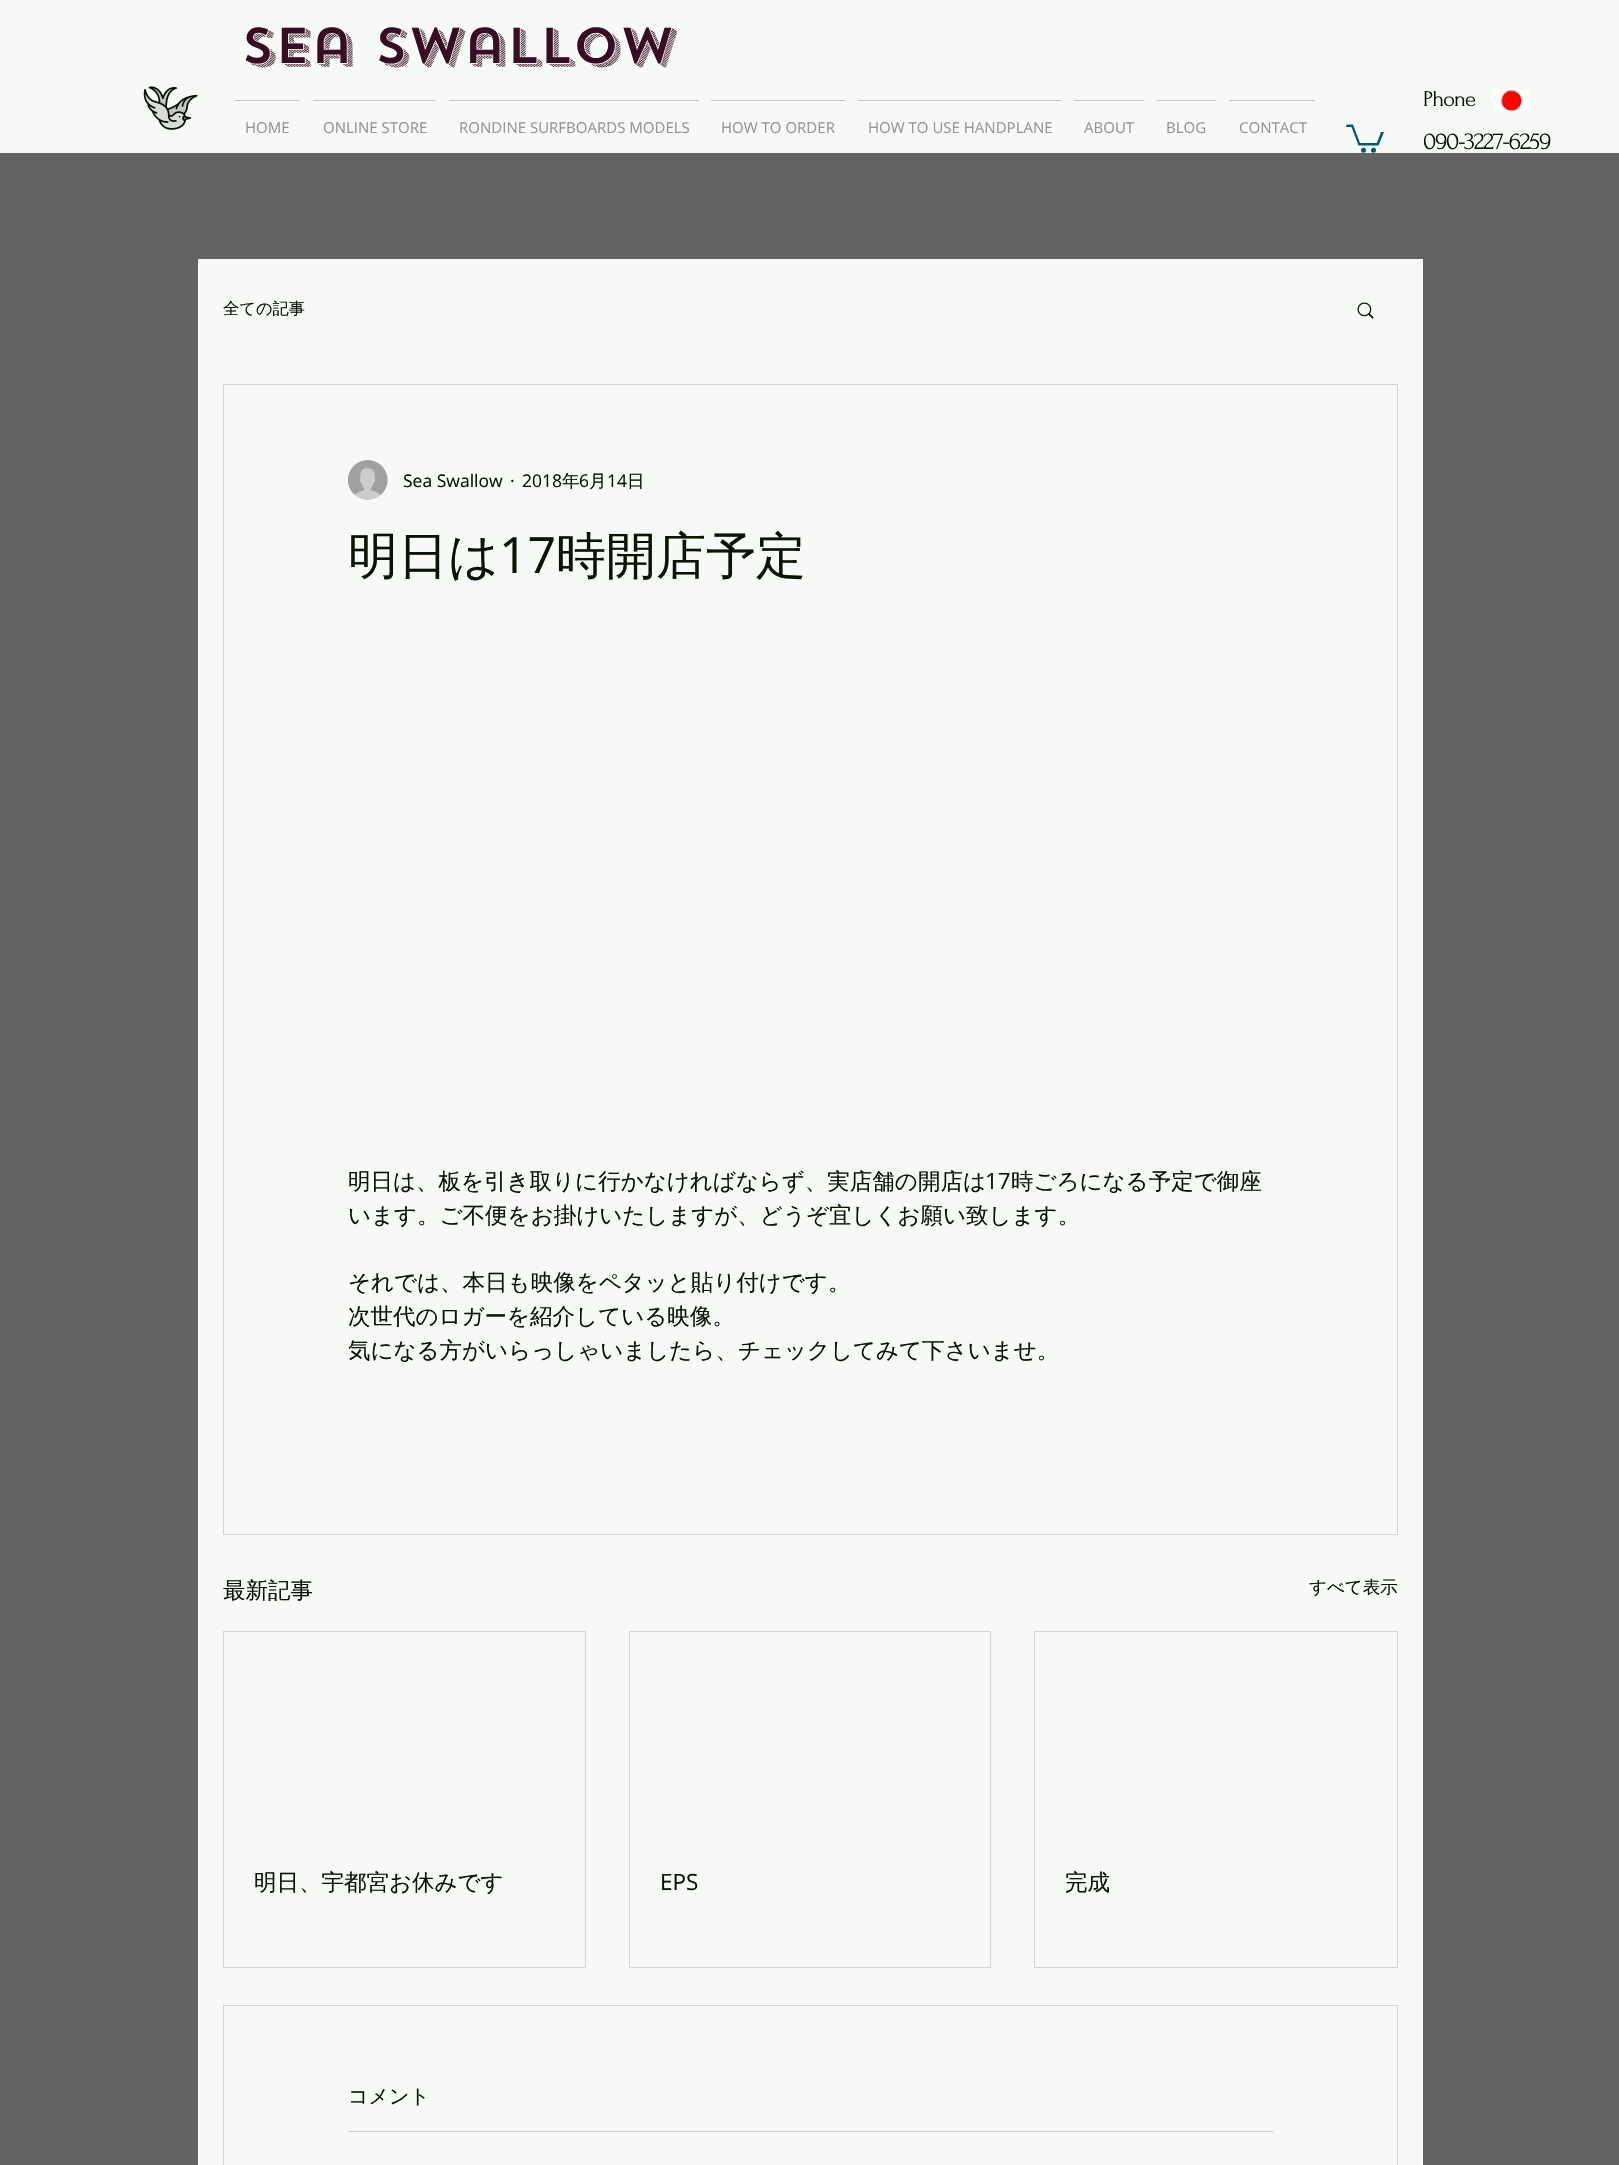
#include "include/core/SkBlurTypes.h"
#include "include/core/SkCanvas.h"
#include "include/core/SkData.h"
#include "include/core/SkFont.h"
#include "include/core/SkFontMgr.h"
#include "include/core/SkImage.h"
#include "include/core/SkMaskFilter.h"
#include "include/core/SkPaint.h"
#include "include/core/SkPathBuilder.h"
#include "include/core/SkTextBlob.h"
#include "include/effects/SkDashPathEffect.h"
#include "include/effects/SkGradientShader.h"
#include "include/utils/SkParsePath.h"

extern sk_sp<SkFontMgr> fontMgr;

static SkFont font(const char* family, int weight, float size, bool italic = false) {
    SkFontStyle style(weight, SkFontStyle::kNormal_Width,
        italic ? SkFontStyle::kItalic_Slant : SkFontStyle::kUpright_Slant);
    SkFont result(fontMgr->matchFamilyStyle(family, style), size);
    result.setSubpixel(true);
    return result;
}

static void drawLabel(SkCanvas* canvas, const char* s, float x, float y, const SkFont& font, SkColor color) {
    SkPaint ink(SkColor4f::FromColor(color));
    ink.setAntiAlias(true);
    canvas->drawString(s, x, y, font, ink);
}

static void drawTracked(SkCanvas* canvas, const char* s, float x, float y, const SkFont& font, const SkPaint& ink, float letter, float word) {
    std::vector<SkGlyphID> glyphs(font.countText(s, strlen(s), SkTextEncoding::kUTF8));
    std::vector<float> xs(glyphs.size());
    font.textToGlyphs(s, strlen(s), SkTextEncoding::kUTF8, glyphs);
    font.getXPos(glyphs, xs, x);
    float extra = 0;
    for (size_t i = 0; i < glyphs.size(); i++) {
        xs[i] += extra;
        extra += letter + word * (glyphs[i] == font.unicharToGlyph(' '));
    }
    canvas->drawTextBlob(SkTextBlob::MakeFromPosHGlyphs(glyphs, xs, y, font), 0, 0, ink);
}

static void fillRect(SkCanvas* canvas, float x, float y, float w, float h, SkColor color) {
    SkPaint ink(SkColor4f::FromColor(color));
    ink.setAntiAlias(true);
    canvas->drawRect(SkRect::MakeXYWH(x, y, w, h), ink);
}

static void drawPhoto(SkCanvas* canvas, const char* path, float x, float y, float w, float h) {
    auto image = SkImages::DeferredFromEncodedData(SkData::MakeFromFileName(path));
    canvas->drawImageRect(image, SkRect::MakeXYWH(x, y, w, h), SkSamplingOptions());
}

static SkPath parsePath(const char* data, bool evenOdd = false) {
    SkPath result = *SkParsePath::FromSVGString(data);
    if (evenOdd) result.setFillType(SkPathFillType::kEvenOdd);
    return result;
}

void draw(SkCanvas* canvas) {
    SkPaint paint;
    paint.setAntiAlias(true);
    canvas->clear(0xFF626462);
    fillRect(canvas, 0, 0, 1619, 153, 0xFFF6F9F5);
    SkFont font1 = font("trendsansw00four", 500, 50);
    drawLabel(canvas, "Sea Swallow", 241, 63, font1, 0xFF360D22);
    drawPhoto(canvas, "assets/img1.png", 143, 86, 55, 44);
    SkFont font2 = font("Forum", 400, 22.5f);
    paint.setColor(0xFF091405);
    drawTracked(canvas, "Phone", 1423, 106, font2, paint, -1, 0);
    drawPhoto(canvas, "assets/img2.png", 1493, 90, 37, 22);
    paint.setColor(0xFF035772);
    canvas->drawPath(parsePath("M1384 132L1378.5 145.5H1358.5L1351.5 127H1346L1346.5 124.5H1353L1360 143H1377L1381 132"), paint);
    canvas->drawCircle(1373.5f, 150.3f, 2.5f, paint);
    canvas->drawCircle(1363.5f, 150.3f, 2.5f, paint);
    SkFont font3 = font("Forum", 400, 25);
    paint.setColor(0xFF091405);
    drawTracked(canvas, "090-3227-6259", 1423, 149, font3, paint, -1.25f, 0);
    fillRect(canvas, 235, 100, 65, 1, 0xFFC5C7C4);
    SkFont font4 = font("Open Sans", 400, 15);
    drawLabel(canvas, "HOME", 245, 133, font4, 0xFF949593);
    fillRect(canvas, 313, 100, 123, 1, 0xFFC5C7C4);
    drawLabel(canvas, "ONLINE STORE", 323, 133, font4, 0xFF949593);
    fillRect(canvas, 449, 100, 250, 1, 0xFFC5C7C4);
    drawLabel(canvas, "RONDINE SURFBOARDS MODELS", 459, 133, font4, 0xFF949593);
    fillRect(canvas, 711, 100, 134, 1, 0xFFC5C7C4);
    drawLabel(canvas, "HOW TO ORDER", 721, 133, font4, 0xFF949593);
    fillRect(canvas, 858, 100, 203, 1, 0xFFC5C7C4);
    drawLabel(canvas, "HOW TO USE HANDPLANE", 868, 133, font4, 0xFF949593);
    fillRect(canvas, 1074, 100, 70, 1, 0xFFC5C7C4);
    drawLabel(canvas, "ABOUT", 1084, 133, font4, 0xFF949593);
    fillRect(canvas, 1156, 100, 60, 1, 0xFFC5C7C4);
    drawLabel(canvas, "BLOG", 1166, 133, font4, 0xFF949593);
    fillRect(canvas, 1229, 100, 86, 1, 0xFFC5C7C4);
    drawLabel(canvas, "CONTACT", 1239, 133, font4, 0xFF949593);
    fillRect(canvas, 198, 259, 1225, 1906, 0xFFF6F9F5);
    SkFont font5 = font("WenQuanYi Zen Hei", 500, 16.25f);
    drawLabel(canvas, "全ての記事", 223, 314, font5, 0xFF091405);
    drawPhoto(canvas, "assets/img3.png", 1357, 302, 17, 17);
    paint.setStroke(true);
    paint.setStrokeWidth(1);
    paint.setColor(0xFFD1D4D0);
    canvas->drawRect(SkRect::MakeXYWH(223.5f, 384.5f, 1174, 1150), paint);
    drawPhoto(canvas, "assets/img4.png", 348, 460, 40, 40);
    SkFont font6 = font("Open Sans", 400, 17.5f);
    drawLabel(canvas, "Sea Swallow", 403, 487, font6, 0xFF091405);
    drawLabel(canvas, "·", 510, 487, font6, 0xFF091405);
    drawLabel(canvas, "2018", 522, 487, font6, 0xFF091405);
    SkFont font7 = font("WenQuanYi Zen Hei", 500, 17.5f);
    drawLabel(canvas, "年", 562, 487, font7, 0xFF091405);
    drawLabel(canvas, "6", 579, 487, font6, 0xFF091405);
    drawLabel(canvas, "月", 589, 487, font7, 0xFF091405);
    drawLabel(canvas, "14", 607, 487, font6, 0xFF091405);
    drawLabel(canvas, "日", 627, 487, font7, 0xFF091405);
    SkFont font8 = font("WenQuanYi Zen Hei", 500, 50);
    drawLabel(canvas, "明日は", 348, 573, font8, 0xFF091405);
    SkFont font9 = font("Open Sans", 400, 50);
    drawLabel(canvas, "17", 499, 573, font9, 0xFF091405);
    drawLabel(canvas, "時開店予定", 556, 573, font8, 0xFF091405);
    SkFont font10 = font("WenQuanYi Zen Hei", 500, 22.5f);
    drawLabel(canvas, "明日は、板を引き取りに行かなければならず、実店舗の開店は", 348, 1189, font10, 0xFF091405);
    SkFont font11 = font("Open Sans", 400, 22.5f);
    drawLabel(canvas, "17", 985, 1189, font11, 0xFF091405);
    drawLabel(canvas, "時ごろになる予定で御座", 1011, 1189, font10, 0xFF091405);
    drawLabel(canvas, "います。ご不便をお掛けいたしますが、どうぞ宜しくお願い致します。", 348, 1223, font10, 0xFF091405);
    drawLabel(canvas, "それでは、本日も映像をペタッと貼り付けです。", 348, 1290, font10, 0xFF091405);
    drawLabel(canvas, "次世代のロガーを紹介している映像。", 348, 1324, font10, 0xFF091405);
    drawLabel(canvas, "気になる方がいらっしゃいましたら、チェックしてみて下さいませ。", 348, 1358, font10, 0xFF091405);
    drawLabel(canvas, "最新記事", 223, 1598, font10, 0xFF091405);
    drawLabel(canvas, "すべて表示", 1309, 1593, font7, 0xFF091405);
    canvas->drawRect(SkRect::MakeXYWH(223.5f, 1631.5f, 362, 336), paint);
    drawLabel(canvas, "明日、宇都宮お休みです", 254, 1890, font10, 0xFF091405);
    canvas->drawRect(SkRect::MakeXYWH(629.5f, 1631.5f, 361, 336), paint);
    drawLabel(canvas, "EPS", 660, 1890, font11, 0xFF091405);
    canvas->drawRect(SkRect::MakeXYWH(1034.5f, 1631.5f, 363, 336), paint);
    drawLabel(canvas, "完成", 1065, 1890, font10, 0xFF091405);
    canvas->drawRect(SkRect::MakeXYWH(223.5f, 2005.5f, 1174, 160), paint);
    SkFont font12 = font("WenQuanYi Zen Hei", 500, 20);
    drawLabel(canvas, "コメント", 348, 2103, font12, 0xFF091405);
    fillRect(canvas, 348, 2131, 925, 1, 0xFFC7CBC5);
}
